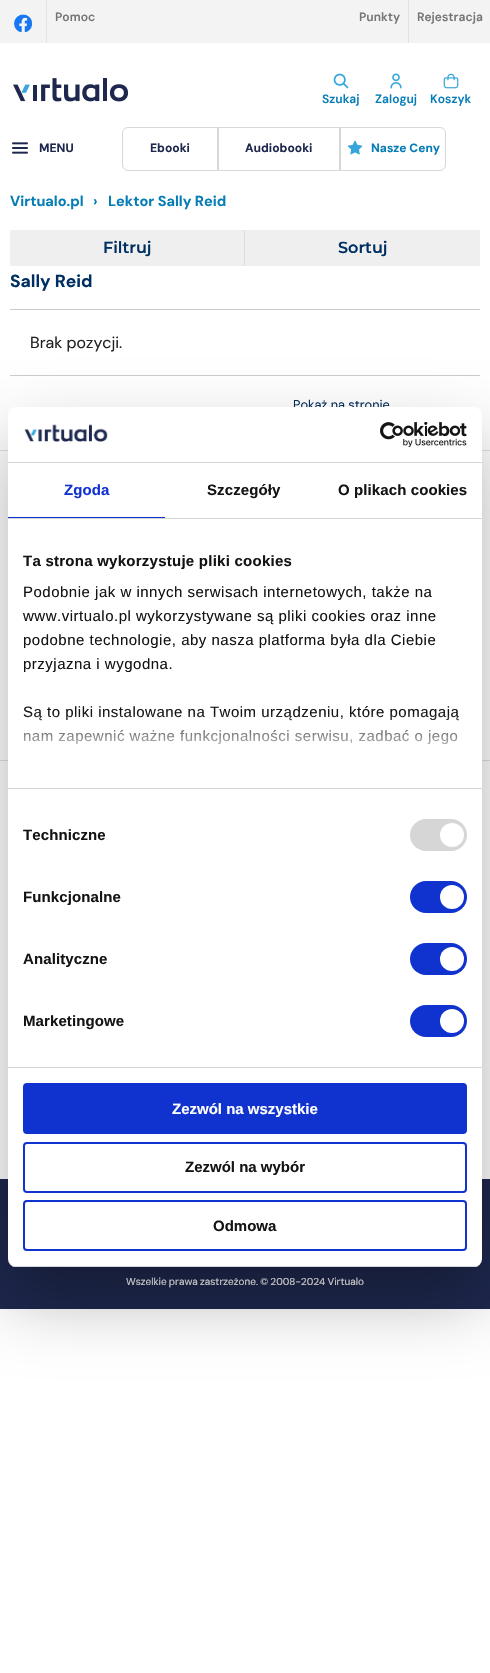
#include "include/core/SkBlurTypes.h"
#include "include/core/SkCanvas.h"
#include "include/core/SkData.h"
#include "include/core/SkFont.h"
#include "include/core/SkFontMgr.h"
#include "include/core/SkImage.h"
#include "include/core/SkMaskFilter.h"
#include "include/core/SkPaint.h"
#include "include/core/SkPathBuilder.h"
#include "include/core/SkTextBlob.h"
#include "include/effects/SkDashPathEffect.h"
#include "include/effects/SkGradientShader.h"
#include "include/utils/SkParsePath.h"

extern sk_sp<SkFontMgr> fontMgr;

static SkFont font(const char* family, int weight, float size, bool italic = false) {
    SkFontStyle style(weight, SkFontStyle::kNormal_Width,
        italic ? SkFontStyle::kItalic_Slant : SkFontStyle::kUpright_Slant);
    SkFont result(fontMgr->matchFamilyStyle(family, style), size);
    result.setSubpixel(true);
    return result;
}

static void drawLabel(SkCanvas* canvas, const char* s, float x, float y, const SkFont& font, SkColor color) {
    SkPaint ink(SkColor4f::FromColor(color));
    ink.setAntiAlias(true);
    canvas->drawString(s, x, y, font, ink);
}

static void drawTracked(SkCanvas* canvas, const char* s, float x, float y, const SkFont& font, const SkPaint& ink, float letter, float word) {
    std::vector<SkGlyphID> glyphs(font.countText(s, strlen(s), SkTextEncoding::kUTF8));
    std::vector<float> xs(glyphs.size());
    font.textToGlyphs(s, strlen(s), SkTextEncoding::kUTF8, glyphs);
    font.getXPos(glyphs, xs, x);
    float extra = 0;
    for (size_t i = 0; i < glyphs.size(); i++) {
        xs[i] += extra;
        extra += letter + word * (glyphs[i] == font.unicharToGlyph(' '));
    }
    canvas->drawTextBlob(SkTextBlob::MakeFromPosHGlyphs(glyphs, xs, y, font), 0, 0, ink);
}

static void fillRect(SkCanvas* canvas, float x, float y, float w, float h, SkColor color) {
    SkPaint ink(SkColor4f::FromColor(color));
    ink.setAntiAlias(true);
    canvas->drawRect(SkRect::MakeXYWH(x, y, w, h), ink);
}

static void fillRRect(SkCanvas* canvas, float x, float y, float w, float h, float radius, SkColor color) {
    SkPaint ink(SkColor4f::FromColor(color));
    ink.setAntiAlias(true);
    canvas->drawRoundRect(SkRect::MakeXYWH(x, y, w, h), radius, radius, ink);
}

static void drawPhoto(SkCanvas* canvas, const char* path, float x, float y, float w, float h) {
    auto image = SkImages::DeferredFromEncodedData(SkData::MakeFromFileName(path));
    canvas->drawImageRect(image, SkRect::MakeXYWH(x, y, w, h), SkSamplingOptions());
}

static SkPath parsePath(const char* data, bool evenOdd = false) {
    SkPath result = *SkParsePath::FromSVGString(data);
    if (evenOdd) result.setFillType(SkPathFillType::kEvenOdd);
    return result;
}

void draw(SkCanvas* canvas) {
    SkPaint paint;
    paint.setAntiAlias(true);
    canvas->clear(0xFFFFFFFF);
    fillRect(canvas, 0, 0, 490, 43, 0xFFF3F3F3);
    drawPhoto(canvas, "assets/img1.png", 14, 14, 18, 18);
    fillRect(canvas, 46, 0, 1, 43, 0xFFE2E2E2);
    SkFont font1 = font("DM Sans", 600, 12);
    drawLabel(canvas, "Pomoc", 55, 21, font1, 0xFF757575);
    drawLabel(canvas, "Punkty", 359, 21, font1, 0xFF757575);
    fillRect(canvas, 408, 0, 1, 43, 0xFFE2E2E2);
    drawLabel(canvas, "Rejestracja", 417, 21, font1, 0xFF757575);
    drawPhoto(canvas, "assets/img2.png", 13, 78, 115, 24);
    drawPhoto(canvas, "assets/img3.png", 333, 73, 16, 16);
    drawLabel(canvas, "Szukaj", 322, 103, font1, 0xFF067DB6);
    drawPhoto(canvas, "assets/img4.png", 390, 73, 12, 16);
    drawLabel(canvas, "Zaloguj", 375, 103, font1, 0xFF067DB6);
    drawPhoto(canvas, "assets/img5.png", 443, 73, 16, 16);
    drawLabel(canvas, "Koszyk", 430, 103, font1, 0xFF067DB6);
    drawPhoto(canvas, "assets/img6.png", 12, 142, 16, 12);
    SkFont font2 = font("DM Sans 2", 700, 12);
    drawLabel(canvas, "MENU", 39, 152, font2, 0xFF1E284E);
    paint.setStroke(true);
    paint.setStrokeWidth(1);
    paint.setColor(0xFFD7D7D7);
    canvas->drawPath(parsePath("M128 127.5H217.5V170.5H128C125 170.5 122.5 168 122.5 165V133C122.5 130 125 127.5 128 127.5Z"), paint);
    drawLabel(canvas, "Ebooki", 150, 152, font2, 0xFF1E284E);
    canvas->drawRect(SkRect::MakeXYWH(218.5f, 127.5f, 121, 43), paint);
    drawLabel(canvas, "Audiobooki", 245, 152, font2, 0xFF1E284E);
    canvas->drawPath(parsePath("M340.5 127.5H440C443 127.5 445.5 130 445.5 133V165C445.5 168 443 170.5 440 170.5H340.5Z"), paint);
    drawPhoto(canvas, "assets/img7.png", 347, 140, 16, 15);
    SkFont font3 = font("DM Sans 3", 700, 12);
    drawLabel(canvas, "Nasze Ceny", 371, 152, font3, 0xFF067DB6);
    SkFont font4 = font("DM Sans", 700, 14.5f);
    drawLabel(canvas, "Virtualo.pl", 10, 206, font4, 0xFF067DB6);
    drawLabel(canvas, "›", 93, 206, font4, 0xFF067DB6);
    drawLabel(canvas, "Lektor Sally Reid", 108, 206, font4, 0xFF067DB6);
    fillRect(canvas, 244, 230, 1, 36, 0xFFDDDDDD);
    fillRect(canvas, 10, 230, 234, 36, 0xFFEFEFEF);
    SkFont font5 = font("Montserrat", 600, 16);
    drawLabel(canvas, "Filtruj", 103, 253, font5, 0xFF003061);
    fillRect(canvas, 245, 230, 235, 36, 0xFFEFEFEF);
    drawLabel(canvas, "Sortuj", 338, 253, font5, 0xFF003061);
    fillRect(canvas, 10, 309, 470, 1, 0xFFCCCCCC);
    SkFont font6 = font("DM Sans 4", 700, 17.5f);
    drawLabel(canvas, "Sally Reid", 10, 287, font6, 0xFF003061);
    SkFont font7 = font("DM Sans 2", 400, 16);
    drawLabel(canvas, "Brak pozycji.", 30, 348, font7, 0xFF222222);
    fillRect(canvas, 10, 375, 470, 1, 0xFFCCCCCC);
    SkFont font8 = font("DM Sans", 400, 12.75f);
    drawLabel(canvas, "Pokaż na stronie", 293, 409, font8, 0xFF072D5C);
    fillRect(canvas, 0, 450, 490, 1, 0xFFE1E1E1);
    fillRect(canvas, 0, 760, 490, 1, 0xFFE1E1E1);
    fillRect(canvas, 0, 1179, 490, 130, 0xFF1E284E);
    SkFont font9 = font("DM Sans 3", 400, 10);
    paint.setStroke(false);
    paint.setColor(0xFFFFFFFF);
    drawTracked(canvas, "Wszelkie prawa zastrzeżone. © 2008-2024 Virtualo", 126, 1285, font9, paint, 0, -0.5f);
    paint.setColor(0x4D000000);
    paint.setMaskFilter(SkMaskFilter::MakeBlur(kNormal_SkBlurStyle, 34));
    canvas->drawRoundRect(SkRect::MakeXYWH(8, 439, 474, 860), 8, 8, paint);
    paint.setMaskFilter(nullptr);
    fillRRect(canvas, 8, 407, 474, 860, 8, 0xFFFFFFFF);
    fillRect(canvas, 8, 462, 474, 1, 0xFFD6D6D6);
    drawPhoto(canvas, "assets/img8.png", 24, 424, 84, 18);
    drawPhoto(canvas, "assets/img9.png", 380, 422, 87, 25);
    fillRect(canvas, 8, 518, 474, 1, 0xFFD6D6D6);
    fillRect(canvas, 8, 517, 157, 1, 0xFF1032CF);
    SkFont font10 = font("Liberation Sans", 700, 15);
    paint.setColor(0xFF1032CF);
    drawTracked(canvas, "Zgoda", 64, 495, font10, paint, 0.1f, 0);
    paint.setColor(0xFF141414);
    drawTracked(canvas, "Szczegóły", 207, 495, font10, paint, 0.1f, 0);
    drawTracked(canvas, "O plikach cookies", 338, 495, font10, paint, 0.1f, 0);
    fillRect(canvas, 8, 788, 474, 1, 0xFFD6D6D6);
    drawTracked(canvas, "Ta strona wykorzystuje pliki cookies", 23, 566, font10, paint, 0.25f, 0);
    SkFont font11 = font("Liberation Sans", 400, 15);
    drawTracked(canvas, "Podobnie jak w innych serwisach internetowych, także na", 23, 597, font11, paint, 0.5f, 0);
    drawTracked(canvas, "www.virtualo.pl wykorzystywane są pliki cookies oraz inne", 23, 621, font11, paint, 0.5f, 0);
    drawTracked(canvas, "podobne technologie, aby nasza platforma była dla Ciebie", 23, 645, font11, paint, 0.5f, 0);
    drawTracked(canvas, "przyjazna i wygodna.", 23, 669, font11, paint, 0.5f, 0);
    drawTracked(canvas, "Są to pliki instalowane na Twoim urządzeniu, które pomagają", 23, 717, font11, paint, 0.5f, 0);
    drawTracked(canvas, "nam zapewnić ważne funkcjonalności serwisu, zadbać o jego", 23, 741, font11, paint, 0.5f, 0);
    {
        const SkColor colors[] = {0xFFFFFFFF, 0xCCFFFFFF, 0x00FFFFFF};
        const float stops[] = {0, 0.5f, 1};
        const SkPoint ends[] = {{239, 788}, {239, 713}};
        paint.setShader(SkGradientShader::MakeLinear(ends, colors, stops, 3, SkTileMode::kClamp));
        paint.setAlpha(255);
    }
    canvas->drawRect(SkRect::MakeXYWH(24, 714, 435, 31), paint);
    fillRect(canvas, 8, 1067, 474, 1, 0xFFD6D6D6);
    paint.setShader(nullptr);
    paint.setColor(0xFF141414);
    drawTracked(canvas, "Techniczne", 23, 840, font10, paint, 0.1f, 0);
    fillRRect(canvas, 410, 819, 57, 32, 16, 0xFFD6D6D6);
    paint.setColor(0xFFFFFFFF);
    canvas->drawCircle(452, 835, 12, paint);
    paint.setColor(0xFF141414);
    drawTracked(canvas, "Funkcjonalne", 23, 902, font10, paint, 0.1f, 0);
    fillRRect(canvas, 410, 881, 57, 32, 16, 0xFF1032CF);
    paint.setColor(0xFFFFFFFF);
    canvas->drawCircle(452, 897, 12, paint);
    paint.setColor(0xFF141414);
    drawTracked(canvas, "Analityczne", 23, 964, font10, paint, 0.1f, 0);
    fillRRect(canvas, 410, 943, 57, 32, 16, 0xFF1032CF);
    paint.setColor(0xFFFFFFFF);
    canvas->drawCircle(452, 959, 12, paint);
    paint.setColor(0xFF141414);
    drawTracked(canvas, "Marketingowe", 23, 1026, font10, paint, 0.1f, 0);
    fillRRect(canvas, 410, 1005, 57, 32, 16, 0xFF1032CF);
    paint.setColor(0xFFFFFFFF);
    canvas->drawCircle(452, 1021, 12, paint);
    canvas->save();
    canvas->clipPath(parsePath("M16 407H474C478.5 407 482 410.5 482 415V1259C482 1263.5 478.5 1267 474 1267H16C11.5 1267 8 1263.5 8 1259V415C8 410.5 11.5 407 16 407Z"), true);
    fillRect(canvas, 8, 1266, 474, 1, 0xFFD6D6D6);
    canvas->restore();
    paint.setColor(0xFF1032CF);
    canvas->drawRoundRect(SkRect::MakeXYWH(24, 1084, 442, 49), 3, 3, paint);
    paint.setStroke(true);
    paint.setStrokeWidth(2);
    canvas->drawRoundRect(SkRect::MakeXYWH(24, 1084, 442, 49), 3, 3, paint);
    drawLabel(canvas, "Zezwól na wszystkie", 172, 1114, font10, 0xFFFFFFFF);
    canvas->drawRoundRect(SkRect::MakeXYWH(24, 1143, 442, 49), 3, 3, paint);
    drawLabel(canvas, "Zezwól na wybór", 185, 1172, font10, 0xFF141414);
    canvas->drawRoundRect(SkRect::MakeXYWH(24, 1201, 442, 49), 3, 3, paint);
    drawLabel(canvas, "Odmowa", 213, 1231, font10, 0xFF141414);
}
